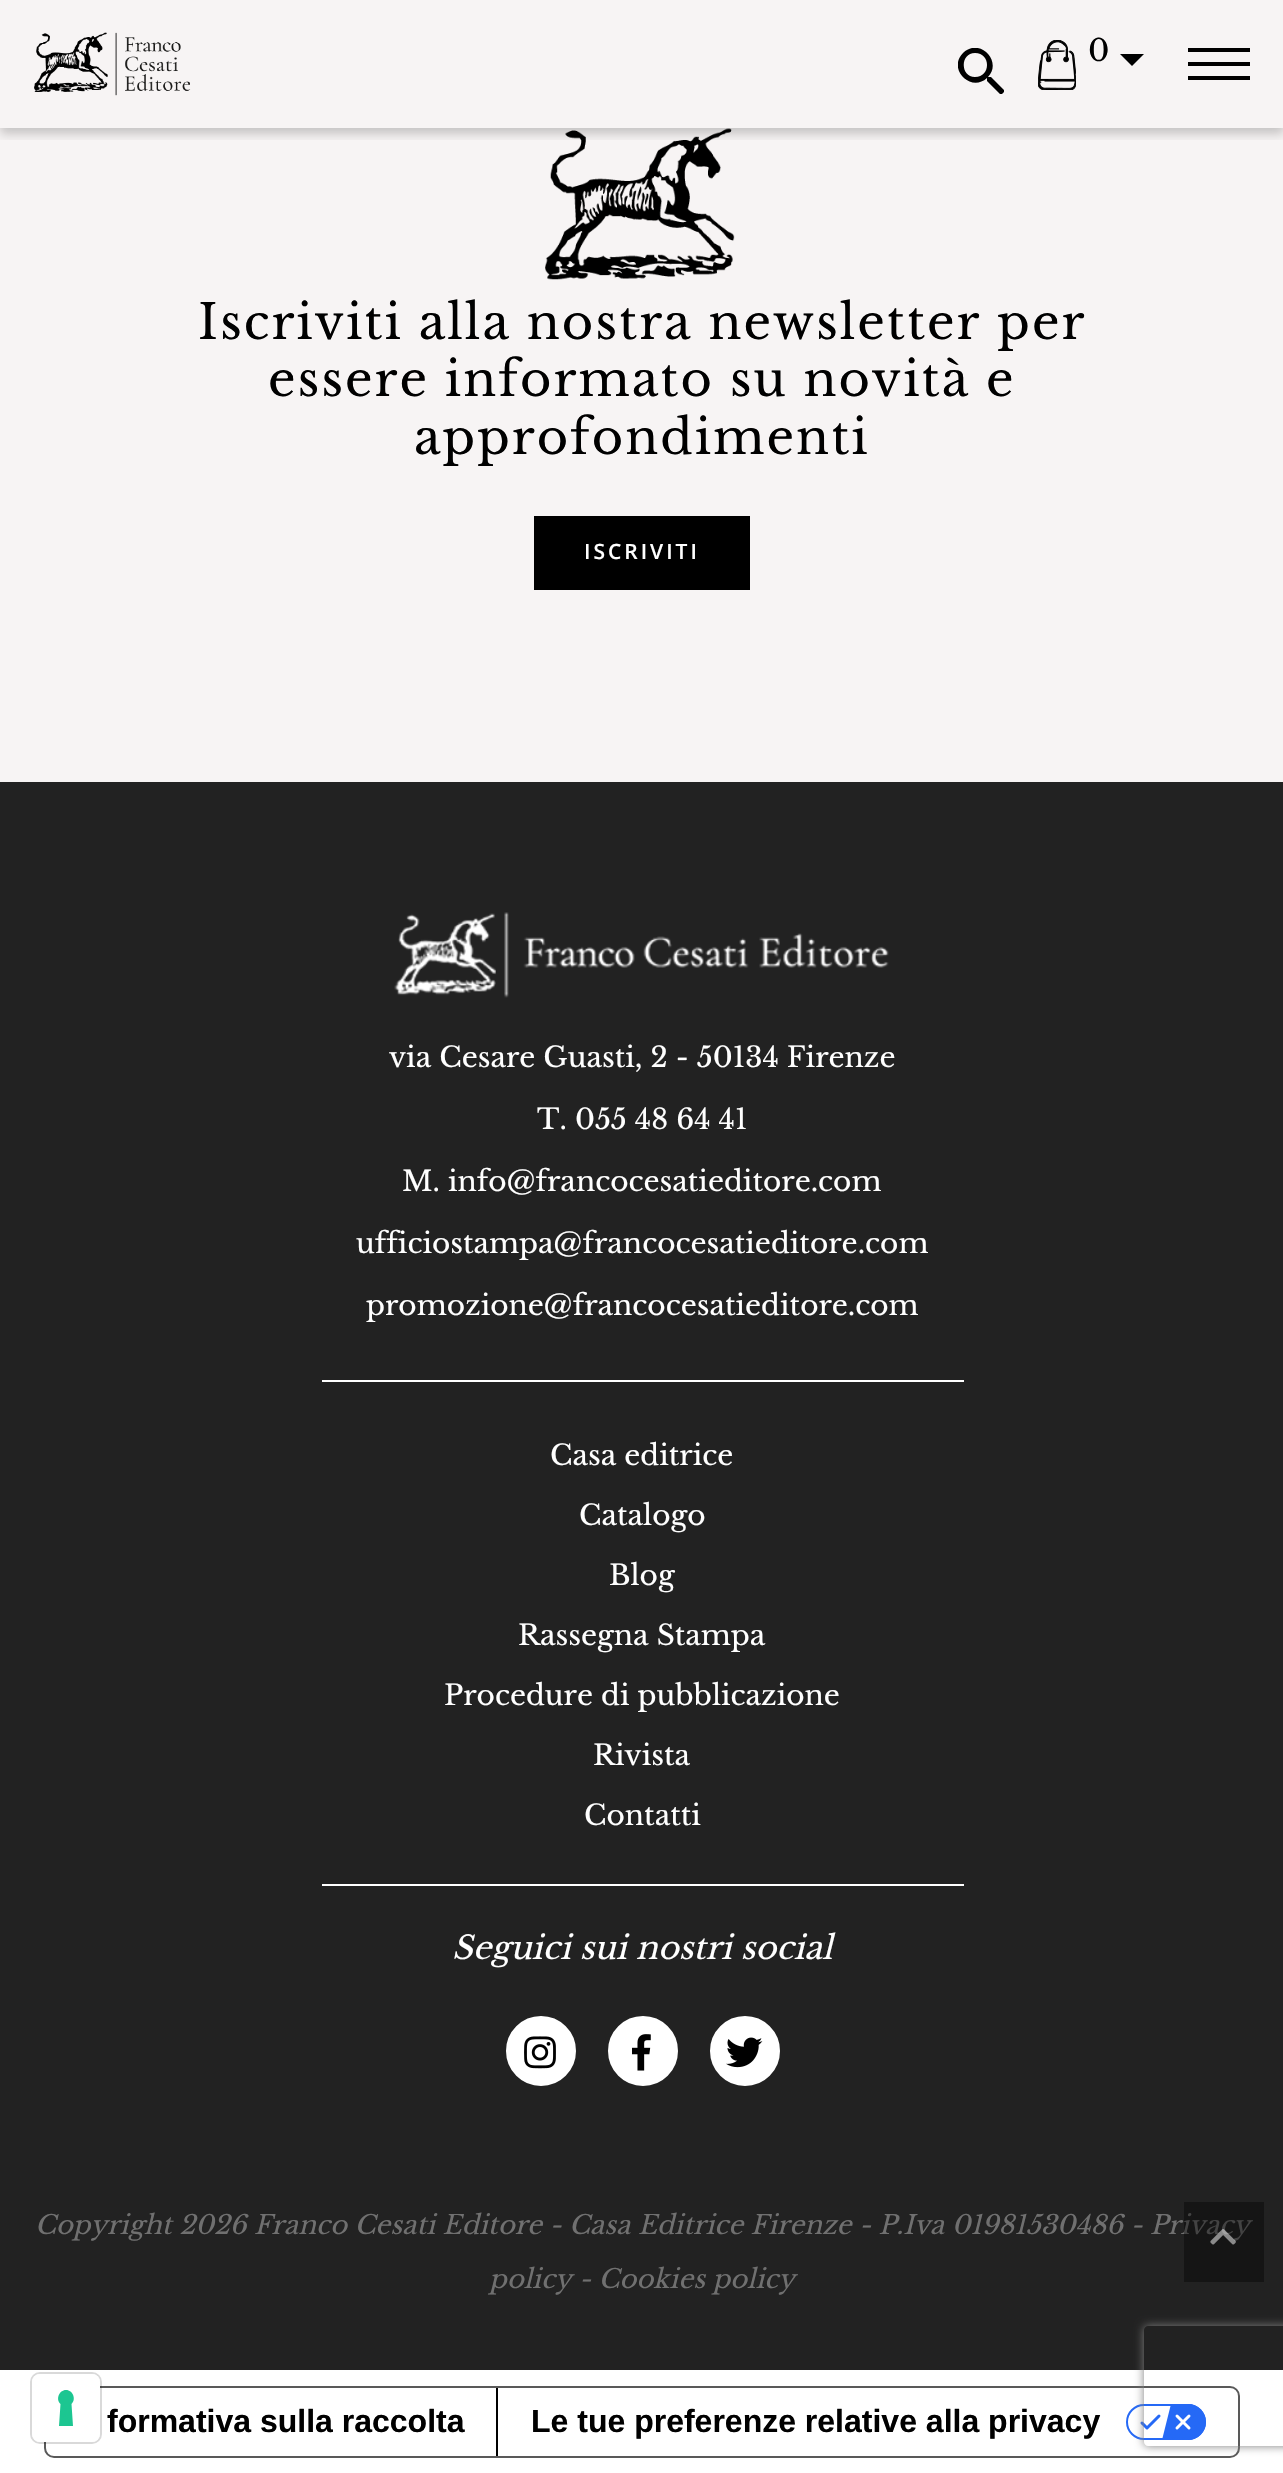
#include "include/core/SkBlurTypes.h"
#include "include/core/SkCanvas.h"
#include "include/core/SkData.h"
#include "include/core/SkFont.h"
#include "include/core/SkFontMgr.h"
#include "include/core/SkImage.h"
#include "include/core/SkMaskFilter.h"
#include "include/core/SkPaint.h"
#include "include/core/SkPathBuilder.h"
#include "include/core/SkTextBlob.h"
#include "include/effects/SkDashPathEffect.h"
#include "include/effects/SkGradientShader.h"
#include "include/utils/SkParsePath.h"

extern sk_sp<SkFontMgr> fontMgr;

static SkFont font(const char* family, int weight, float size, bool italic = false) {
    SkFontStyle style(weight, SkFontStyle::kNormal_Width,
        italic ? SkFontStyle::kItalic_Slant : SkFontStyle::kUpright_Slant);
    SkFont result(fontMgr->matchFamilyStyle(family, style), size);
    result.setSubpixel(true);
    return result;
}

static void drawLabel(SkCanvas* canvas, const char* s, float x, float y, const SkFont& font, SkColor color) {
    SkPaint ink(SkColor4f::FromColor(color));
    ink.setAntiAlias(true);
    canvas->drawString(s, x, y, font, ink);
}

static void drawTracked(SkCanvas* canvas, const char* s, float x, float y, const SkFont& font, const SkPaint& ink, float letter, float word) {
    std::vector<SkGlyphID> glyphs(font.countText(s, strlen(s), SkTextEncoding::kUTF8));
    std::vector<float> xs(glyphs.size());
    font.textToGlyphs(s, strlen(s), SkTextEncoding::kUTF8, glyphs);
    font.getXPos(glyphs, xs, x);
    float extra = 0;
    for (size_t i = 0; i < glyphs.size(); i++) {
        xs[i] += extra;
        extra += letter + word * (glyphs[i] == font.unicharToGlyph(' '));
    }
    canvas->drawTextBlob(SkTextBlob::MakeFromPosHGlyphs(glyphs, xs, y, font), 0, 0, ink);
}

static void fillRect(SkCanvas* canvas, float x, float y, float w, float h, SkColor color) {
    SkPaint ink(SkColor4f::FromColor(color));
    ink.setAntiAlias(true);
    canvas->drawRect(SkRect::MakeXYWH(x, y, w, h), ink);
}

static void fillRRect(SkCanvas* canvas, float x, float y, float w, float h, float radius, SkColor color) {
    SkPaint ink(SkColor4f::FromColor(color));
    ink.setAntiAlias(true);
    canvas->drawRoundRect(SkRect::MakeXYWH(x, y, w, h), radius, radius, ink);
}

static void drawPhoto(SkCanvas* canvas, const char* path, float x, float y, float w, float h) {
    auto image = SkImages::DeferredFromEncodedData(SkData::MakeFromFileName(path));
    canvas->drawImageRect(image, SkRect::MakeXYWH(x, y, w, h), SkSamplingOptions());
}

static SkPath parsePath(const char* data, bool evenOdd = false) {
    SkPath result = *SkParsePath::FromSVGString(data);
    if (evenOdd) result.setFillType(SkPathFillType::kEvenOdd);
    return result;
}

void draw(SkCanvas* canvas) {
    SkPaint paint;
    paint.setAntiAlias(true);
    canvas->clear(0xFFFFFFFF);
    fillRect(canvas, 0, 0, 1283, 782, 0xFFF7F4F4);
    drawPhoto(canvas, "assets/img3.png", 545, 128, 190, 152);
    canvas->save();
    canvas->clipRect(SkRect::MakeXYWH(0, 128, 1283, 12));
    paint.setColor(0x33000000);
    paint.setMaskFilter(SkMaskFilter::MakeBlur(kNormal_SkBlurStyle, 5));
    canvas->drawRect(SkRect::MakeXYWH(0, 6, 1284, 128), paint);
    paint.setMaskFilter(nullptr);
    canvas->restore();
    drawPhoto(canvas, "assets/img1.png", 34, 32, 157, 64);
    canvas->save();
    canvas->clipRect(SkRect::MakeXYWH(958, 48, 46, 46));
    paint.setColor(0xFF000000);
    canvas->drawPath(parsePath("M991 77H989H988C1003 61 979 37 963 53C947 69 971 93 987 78V79V81L1001 95L1005 91ZM975 77C960 77 960 53 975 53C991 53 991 77 975 77Z"), paint);
    canvas->restore();
    drawPhoto(canvas, "assets/img2.png", 1038, 40, 38, 50);
    SkFont font1 = font("Libre Baskerville", 400, 30);
    drawLabel(canvas, "0", 1088, 61, font1, 0xFF000000);
    canvas->drawPath(parsePath("M1120 54H1144L1132 66Z"), paint);
    fillRect(canvas, 1188, 48, 62, 4, 0xFF000000);
    fillRect(canvas, 1188, 62, 62, 4, 0xFF000000);
    fillRect(canvas, 1188, 76, 62, 4, 0xFF000000);
    SkFont font2 = font("Libre Baskerville", 400, 48);
    drawTracked(canvas, "Iscriviti alla nostra newsletter per", 198, 339, font2, paint, 2, 0);
    drawTracked(canvas, "essere informato su novità e", 268, 396, font2, paint, 2, 0);
    drawTracked(canvas, "approfondimenti", 414, 454, font2, paint, 2, 0);
    fillRect(canvas, 534, 516, 216, 74, 0xFF000000);
    SkFont font3 = font("Open Sans", 600, 21);
    paint.setColor(0xFFFFFFFF);
    drawTracked(canvas, "ISCRIVITI", 584, 559, font3, paint, 3, 0);
    fillRect(canvas, 0, 782, 1283, 1588, 0xFF222222);
    drawPhoto(canvas, "assets/img4.png", 394, 912, 495, 86);
    SkFont font4 = font("Libre Baskerville", 400, 28);
    drawLabel(canvas, "via Cesare Guasti, 2 - 50134 Firenze", 389, 1067, font4, 0xFFFFFFFF);
    drawLabel(canvas, "T. 055 48 64 41", 537, 1129, font4, 0xFFFFFFFF);
    drawLabel(canvas, "M. info@francocesatieditore.com", 402, 1191, font4, 0xFFFFFFFF);
    drawLabel(canvas, "ufficiostampa@francocesatieditore.com", 356, 1253, font4, 0xFFFFFFFF);
    drawLabel(canvas, "promozione@francocesatieditore.com", 366, 1315, font4, 0xFFFFFFFF);
    fillRect(canvas, 322, 1380, 642, 2, 0xFFFFFFFF);
    drawLabel(canvas, "Casa editrice", 550, 1465, font4, 0xFFFFFFFF);
    drawLabel(canvas, "Catalogo", 579, 1525, font4, 0xFFFFFFFF);
    drawLabel(canvas, "Blog", 609, 1585, font4, 0xFFFFFFFF);
    drawLabel(canvas, "Rassegna Stampa", 518, 1645, font4, 0xFFFFFFFF);
    drawLabel(canvas, "Procedure di pubblicazione", 444, 1705, font4, 0xFFFFFFFF);
    drawLabel(canvas, "Rivista", 593, 1765, font4, 0xFFFFFFFF);
    drawLabel(canvas, "Contatti", 584, 1825, font4, 0xFFFFFFFF);
    fillRect(canvas, 322, 1884, 642, 2, 0xFFFFFFFF);
    SkFont font5 = font("Libre Baskerville", 400, 32, true);
    drawLabel(canvas, "Seguici sui nostri social", 452, 1959, font5, 0xFFFFFFFF);
    canvas->drawCircle(541, 2051, 34, paint);
    paint.setStroke(true);
    paint.setStrokeWidth(2);
    canvas->drawCircle(541, 2051, 34, paint);
    drawPhoto(canvas, "assets/img5.png", 524, 2036, 32, 33);
    paint.setStroke(false);
    canvas->drawCircle(643, 2051, 34, paint);
    paint.setStroke(true);
    canvas->drawCircle(643, 2051, 34, paint);
    drawPhoto(canvas, "assets/img6.png", 632, 2034, 19, 37);
    paint.setStroke(false);
    canvas->drawCircle(745, 2051, 34, paint);
    paint.setStroke(true);
    canvas->drawCircle(745, 2051, 34, paint);
    drawPhoto(canvas, "assets/img7.png", 726, 2037, 37, 31);
    SkFont font6 = font("Libre Baskerville", 400, 26, true);
    drawLabel(canvas, "Copyright 2026 Franco Cesati Editore - Casa Editrice Firenze - P.Iva 01981530486 - Privacy", 35, 2234, font6, 0xFF707070);
    drawLabel(canvas, "policy - Cookies policy", 489, 2288, font6, 0xFF707070);
    fillRect(canvas, 1184, 2202, 80, 80, 0x66000000);
    drawPhoto(canvas, "assets/img8.png", 1210, 2229, 26, 16);
    paint.setColor(0xFF595959);
    canvas->drawRoundRect(SkRect::MakeXYWH(45, 2387, 1194, 70), 9, 9, paint);
    paint.setColor(0x26000000);
    canvas->drawRoundRect(SkRect::MakeXYWH(31, 2373, 70, 70), 9, 9, paint);
    fillRRect(canvas, 32, 2374, 68, 68, 8, 0xFFFFFFFF);
    paint.setStroke(false);
    paint.setColor(0xFF1CC691);
    canvas->drawPath(parsePath("M66 2390C73 2390 76.5 2399.5 71.5 2404L73 2426H59L60.5 2404C55.5 2399.5 59 2390 66 2390Z", true), paint);
    SkFont font7 = font("Liberation Sans", 700, 32);
    drawLabel(canvas, "formativa sulla raccolta", 107, 2432, font7, 0xFF000000);
    fillRect(canvas, 496, 2388, 2, 68, 0xFF000000);
    drawLabel(canvas, "Le tue preferenze relative alla privacy", 531, 2432, font7, 0xFF000000);
    drawPhoto(canvas, "assets/img9.png", 1126, 2404, 80, 36);
    canvas->save();
    canvas->clipPath(parsePath("M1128 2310H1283V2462H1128ZM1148 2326H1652C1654 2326 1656 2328 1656 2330V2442C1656 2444 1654 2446 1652 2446H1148C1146 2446 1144 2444 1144 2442V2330C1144 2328 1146 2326 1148 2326Z", true), true);
    paint.setColor(0xFF808080);
    paint.setMaskFilter(SkMaskFilter::MakeBlur(kNormal_SkBlurStyle, 5));
    canvas->drawRoundRect(SkRect::MakeXYWH(1144, 2326, 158, 120), 4, 4, paint);
    paint.setMaskFilter(nullptr);
    canvas->restore();
}
